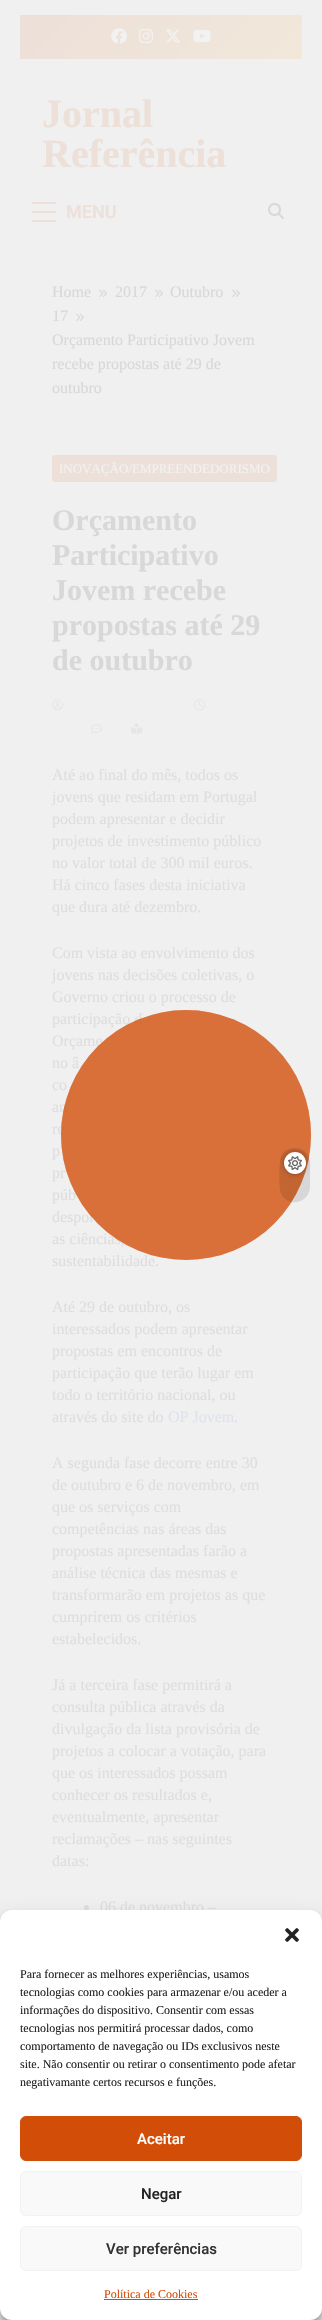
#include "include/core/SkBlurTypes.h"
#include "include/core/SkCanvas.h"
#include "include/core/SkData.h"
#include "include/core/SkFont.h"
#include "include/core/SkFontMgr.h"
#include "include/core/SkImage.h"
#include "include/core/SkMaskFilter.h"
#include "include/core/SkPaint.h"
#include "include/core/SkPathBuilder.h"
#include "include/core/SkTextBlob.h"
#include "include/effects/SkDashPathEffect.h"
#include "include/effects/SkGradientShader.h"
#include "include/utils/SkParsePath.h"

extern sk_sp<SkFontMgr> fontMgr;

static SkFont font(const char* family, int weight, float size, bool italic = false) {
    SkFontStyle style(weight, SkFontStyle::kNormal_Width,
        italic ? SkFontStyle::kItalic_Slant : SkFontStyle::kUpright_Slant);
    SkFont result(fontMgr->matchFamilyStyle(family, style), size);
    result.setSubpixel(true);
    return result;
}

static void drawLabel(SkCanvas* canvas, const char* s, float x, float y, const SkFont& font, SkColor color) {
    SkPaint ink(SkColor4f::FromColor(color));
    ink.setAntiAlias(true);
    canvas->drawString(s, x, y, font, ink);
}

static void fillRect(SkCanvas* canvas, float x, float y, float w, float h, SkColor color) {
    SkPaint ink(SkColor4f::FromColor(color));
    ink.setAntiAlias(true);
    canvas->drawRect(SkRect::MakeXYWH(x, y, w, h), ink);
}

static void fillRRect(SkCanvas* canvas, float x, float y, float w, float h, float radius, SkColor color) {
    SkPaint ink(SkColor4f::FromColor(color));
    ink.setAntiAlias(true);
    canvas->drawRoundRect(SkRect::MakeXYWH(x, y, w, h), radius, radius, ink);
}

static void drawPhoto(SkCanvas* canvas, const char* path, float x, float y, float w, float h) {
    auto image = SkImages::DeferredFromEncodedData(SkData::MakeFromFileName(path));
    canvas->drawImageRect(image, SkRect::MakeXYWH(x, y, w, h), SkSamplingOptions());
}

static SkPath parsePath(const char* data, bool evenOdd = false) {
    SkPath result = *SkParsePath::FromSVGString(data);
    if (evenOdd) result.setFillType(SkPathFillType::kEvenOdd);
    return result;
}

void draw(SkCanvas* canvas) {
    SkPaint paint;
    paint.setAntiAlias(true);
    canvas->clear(0xFFF0F0F0);
    {
        const SkColor colors[] = {0xFFEDE0D9, 0xFFF1E8DA};
        const float stops[] = {0.1f, 1};
        const SkPoint ends[] = {{79, -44}, {243, 119}};
        paint.setShader(SkGradientShader::MakeLinear(ends, colors, stops, 2, SkTileMode::kClamp));
        paint.setAlpha(255);
    }
    canvas->drawRect(SkRect::MakeXYWH(20, 15, 282, 44), paint);
    drawPhoto(canvas, "assets/img1.png", 111, 28, 16, 16);
    drawPhoto(canvas, "assets/img2.png", 139, 29, 14, 14);
    drawPhoto(canvas, "assets/img3.png", 166, 29, 15, 14);
    drawPhoto(canvas, "assets/img4.png", 193, 30, 18, 12);
    SkFont font1 = font("Liberation Serif", 700, 40);
    drawLabel(canvas, "Jornal", 42, 127, font1, 0xFFEDE0D9);
    drawLabel(canvas, "Referência", 42, 167, font1, 0xFFEDE0D9);
    fillRect(canvas, 32, 202, 24, 2, 0xFFEDE0D9);
    fillRect(canvas, 32, 211, 24, 2, 0xFFEDE0D9);
    fillRect(canvas, 32, 220, 24, 2, 0xFFEDE0D9);
    SkFont font2 = font("Roboto", 600, 18);
    drawLabel(canvas, "MENU", 66, 218, font2, 0xFFEDE0D9);
    drawPhoto(canvas, "assets/img5.png", 268, 203, 16, 16);
    SkFont font3 = font("Liberation Serif", 400, 16);
    drawLabel(canvas, "participação d", 52, 1024, font3, 0xFFDEDEDE);
    drawLabel(canvas, "Orçame", 52, 1046, font3, 0xFFDEDEDE);
    drawLabel(canvas, "no â", 52, 1068, font3, 0xFFDEDEDE);
    drawLabel(canvas, "co", 52, 1090, font3, 0xFFDEDEDE);
    drawLabel(canvas, "an", 52, 1112, font3, 0xFFDEDEDE);
    drawLabel(canvas, "re", 52, 1134, font3, 0xFFDEDEDE);
    drawLabel(canvas, "pr", 52, 1178, font3, 0xFFDEDEDE);
    drawLabel(canvas, "púb", 52, 1200, font3, 0xFFDEDEDE);
    drawLabel(canvas, "despor", 52, 1222, font3, 0xFFDEDEDE);
    drawLabel(canvas, "as ciências,", 52, 1244, font3, 0xFFDEDEDE);
    drawLabel(canvas, "sustentabilidade.", 52, 1266, font3, 0xFFDEDEDE);
    paint.setShader(nullptr);
    paint.setColor(0x8AD24D08);
    canvas->drawCircle(186, 1135, 125, paint);
    canvas->drawCircle(186, 1135, 125, paint);
    paint.setColor(0x1A000000);
    canvas->drawPath(parsePath("M310 1163V1187C309 1204 287 1208 281 1193C279 1188 279 1169 280 1163C280 1143 310 1144 310 1163Z"), paint);
    paint.setColor(0x59000000);
    paint.setMaskFilter(SkMaskFilter::MakeBlur(kNormal_SkBlurStyle, 2.5f));
    canvas->drawRoundRect(SkRect::MakeXYWH(284, 1152, 22, 22), 11, 11, paint);
    paint.setMaskFilter(nullptr);
    paint.setColor(0xFFFFFFFF);
    canvas->drawCircle(295, 1163, 11, paint);
    drawPhoto(canvas, "assets/img6.png", 288, 1156, 14, 15);
    drawLabel(canvas, "Home", 52, 297, font3, 0xFFD8D8D8);
    drawPhoto(canvas, "assets/img7.png", 99, 289, 8, 8);
    drawLabel(canvas, "2017", 115, 297, font3, 0xFFD8D8D8);
    drawPhoto(canvas, "assets/img7.png", 155, 289, 8, 8);
    drawLabel(canvas, "Outubro", 170, 297, font3, 0xFFD8D8D8);
    drawPhoto(canvas, "assets/img7.png", 232, 289, 8, 8);
    drawLabel(canvas, "17", 52, 321, font3, 0xFFD8D8D8);
    drawPhoto(canvas, "assets/img7.png", 76, 313, 8, 8);
    drawLabel(canvas, "Orçamento Participativo Jovem", 52, 345, font3, 0xFFD8D8D8);
    drawLabel(canvas, "recebe propostas até 29 de", 52, 369, font3, 0xFFD8D8D8);
    drawLabel(canvas, "outubro", 52, 393, font3, 0xFFD8D8D8);
    fillRRect(canvas, 52, 455, 225, 27, 3, 0xFFEDE0D9);
    SkFont font4 = font("Liberation Serif", 400, 13);
    drawLabel(canvas, "INOVAÇÃO/EMPREENDEDORISMO", 59, 473, font4, 0xFFF2F2F2);
    SkFont font5 = font("Liberation Serif", 700, 30);
    drawLabel(canvas, "Orçamento", 52, 530, font5, 0xFFD8D8D8);
    drawLabel(canvas, "Participativo", 52, 565, font5, 0xFFD8D8D8);
    drawLabel(canvas, "Jovem recebe", 52, 600, font5, 0xFFD8D8D8);
    drawLabel(canvas, "propostas até 29", 52, 635, font5, 0xFFD8D8D8);
    drawLabel(canvas, "de outubro", 52, 670, font5, 0xFFD8D8D8);
    drawPhoto(canvas, "assets/img8.png", 52, 699, 12, 12);
    drawPhoto(canvas, "assets/img9.png", 194, 699, 12, 12);
    drawPhoto(canvas, "assets/img10.png", 91, 723, 12, 11);
    drawPhoto(canvas, "assets/img11.png", 131, 723, 12, 12);
    drawLabel(canvas, "Até ao final do mês, todos os", 52, 780, font3, 0xFFDEDEDE);
    drawLabel(canvas, "jovens que residam em Portugal", 52, 802, font3, 0xFFDEDEDE);
    drawLabel(canvas, "podem apresentar e decidir", 52, 824, font3, 0xFFDEDEDE);
    drawLabel(canvas, "projetos de investimento público", 52, 846, font3, 0xFFDEDEDE);
    drawLabel(canvas, "no valor total de 300 mil euros.", 52, 868, font3, 0xFFDEDEDE);
    drawLabel(canvas, "Há cinco fases desta iniciativa", 52, 890, font3, 0xFFDEDEDE);
    drawLabel(canvas, "que dura até dezembro.", 52, 912, font3, 0xFFDEDEDE);
    drawLabel(canvas, "Com vista ao envolvimento dos", 52, 958, font3, 0xFFDEDEDE);
    drawLabel(canvas, "jovens nas decisões coletivas, o", 52, 980, font3, 0xFFDEDEDE);
    drawLabel(canvas, "Governo criou o processo de", 52, 1002, font3, 0xFFDEDEDE);
    drawLabel(canvas, "p", 52, 1156, font3, 0xFFDEDEDE);
    drawLabel(canvas, "Até 29 de outubro, os", 52, 1312, font3, 0xFFDEDEDE);
    drawLabel(canvas, "interessados podem apresentar", 52, 1334, font3, 0xFFDEDEDE);
    drawLabel(canvas, "propostas em encontros de", 52, 1356, font3, 0xFFDEDEDE);
    drawLabel(canvas, "participação que terão lugar em", 52, 1378, font3, 0xFFDEDEDE);
    drawLabel(canvas, "todo o território nacional, ou", 52, 1400, font3, 0xFFDEDEDE);
    drawLabel(canvas, "através do site do", 52, 1422, font3, 0xFFDEDEDE);
    drawLabel(canvas, "OP Jovem", 168, 1422, font3, 0xFFDFE3EF);
    drawLabel(canvas, ".", 234, 1422, font3, 0xFFDEDEDE);
    drawLabel(canvas, "A segunda fase decorre entre 30", 52, 1468, font3, 0xFFDEDEDE);
    drawLabel(canvas, "de outubro e 6 de novembro, em", 52, 1490, font3, 0xFFDEDEDE);
    drawLabel(canvas, "que os serviços com", 52, 1512, font3, 0xFFDEDEDE);
    drawLabel(canvas, "competências nas áreas das", 52, 1534, font3, 0xFFDEDEDE);
    drawLabel(canvas, "propostas apresentadas farão a", 52, 1556, font3, 0xFFDEDEDE);
    drawLabel(canvas, "análise técnica das mesmas e", 52, 1578, font3, 0xFFDEDEDE);
    drawLabel(canvas, "transformarão em projetos as que", 52, 1600, font3, 0xFFDEDEDE);
    drawLabel(canvas, "cumprirem os critérios", 52, 1622, font3, 0xFFDEDEDE);
    drawLabel(canvas, "estabelecidos.", 52, 1644, font3, 0xFFDEDEDE);
    drawLabel(canvas, "Já a terceira fase permitirá a", 52, 1690, font3, 0xFFDEDEDE);
    drawLabel(canvas, "consulta pública através da", 52, 1712, font3, 0xFFDEDEDE);
    drawLabel(canvas, "divulgação da lista provisória de", 52, 1734, font3, 0xFFDEDEDE);
    drawLabel(canvas, "projetos a colocar a votação, para", 52, 1756, font3, 0xFFDEDEDE);
    drawLabel(canvas, "que os interessados possam", 52, 1778, font3, 0xFFDEDEDE);
    drawLabel(canvas, "conhecer os resultados e,", 52, 1800, font3, 0xFFDEDEDE);
    drawLabel(canvas, "eventualmente, apresentar", 52, 1822, font3, 0xFFDEDEDE);
    drawLabel(canvas, "reclamações – nas seguintes", 52, 1844, font3, 0xFFDEDEDE);
    drawLabel(canvas, "datas:", 52, 1866, font3, 0xFFDEDEDE);
    paint.setColor(0xFFDEDEDE);
    canvas->drawCircle(86.5f, 1907.5f, 2.5f, paint);
    drawLabel(canvas, "06 de novembro –", 100, 1912, font3, 0xFFDEDEDE);
    paint.setColor(0x3B000000);
    paint.setMaskFilter(SkMaskFilter::MakeBlur(kNormal_SkBlurStyle, 3));
    canvas->drawRoundRect(SkRect::MakeXYWH(0, 1916, 322, 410), 12, 12, paint);
    paint.setMaskFilter(nullptr);
    paint.setColor(0x30000000);
    paint.setMaskFilter(SkMaskFilter::MakeBlur(kNormal_SkBlurStyle, 10));
    canvas->drawRoundRect(SkRect::MakeXYWH(0, 1920, 322, 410), 12, 12, paint);
    paint.setMaskFilter(nullptr);
    fillRRect(canvas, 0, 1910, 322, 410, 12, 0xFFFFFFFF);
    drawPhoto(canvas, "assets/img12.png", 285, 1928, 14, 14);
    SkFont font6 = font("Liberation Serif", 400, 12);
    drawLabel(canvas, "Para fornecer as melhores experiências, usamos", 20, 1978, font6, 0xFF222222);
    drawLabel(canvas, "tecnologias como cookies para armazenar e/ou aceder a", 20, 1996, font6, 0xFF222222);
    drawLabel(canvas, "informações do dispositivo. Consentir com essas", 20, 2014, font6, 0xFF222222);
    drawLabel(canvas, "tecnologias nos permitirá processar dados, como", 20, 2032, font6, 0xFF222222);
    drawLabel(canvas, "comportamento de navegação ou IDs exclusivos neste", 20, 2050, font6, 0xFF222222);
    drawLabel(canvas, "site. Não consentir ou retirar o consentimento pode afetar", 20, 2068, font6, 0xFF222222);
    drawLabel(canvas, "negativamante certos recursos e funções.", 20, 2086, font6, 0xFF222222);
    paint.setColor(0xFFD24D08);
    canvas->drawRoundRect(SkRect::MakeXYWH(20.5f, 2116.5f, 281, 44), 5.5f, 5.5f, paint);
    paint.setStroke(true);
    paint.setStrokeWidth(1);
    canvas->drawRoundRect(SkRect::MakeXYWH(20.5f, 2116.5f, 281, 44), 5.5f, 5.5f, paint);
    SkFont font7 = font("Roboto", 500, 15);
    drawLabel(canvas, "Aceitar", 137, 2144, font7, 0xFFFFFFFF);
    paint.setStroke(false);
    paint.setColor(0xFFF9F9F9);
    canvas->drawRoundRect(SkRect::MakeXYWH(20.5f, 2171.5f, 281, 44), 5.5f, 5.5f, paint);
    paint.setStroke(true);
    paint.setColor(0xFFF2F2F2);
    canvas->drawRoundRect(SkRect::MakeXYWH(20.5f, 2171.5f, 281, 44), 5.5f, 5.5f, paint);
    drawLabel(canvas, "Negar", 141, 2199, font7, 0xFF222222);
    paint.setStroke(false);
    paint.setColor(0xFFF9F9F9);
    canvas->drawRoundRect(SkRect::MakeXYWH(20.5f, 2226.5f, 281, 44), 5.5f, 5.5f, paint);
    paint.setStroke(true);
    paint.setColor(0xFFF2F2F2);
    canvas->drawRoundRect(SkRect::MakeXYWH(20.5f, 2226.5f, 281, 44), 5.5f, 5.5f, paint);
    drawLabel(canvas, "Ver preferências", 106, 2254, font7, 0xFF333333);
    drawLabel(canvas, "Política de Cookies", 104, 2298, font6, 0xFFD24D08);
    fillRect(canvas, 104, 2299, 94, 1, 0xFFD24D08);
}
